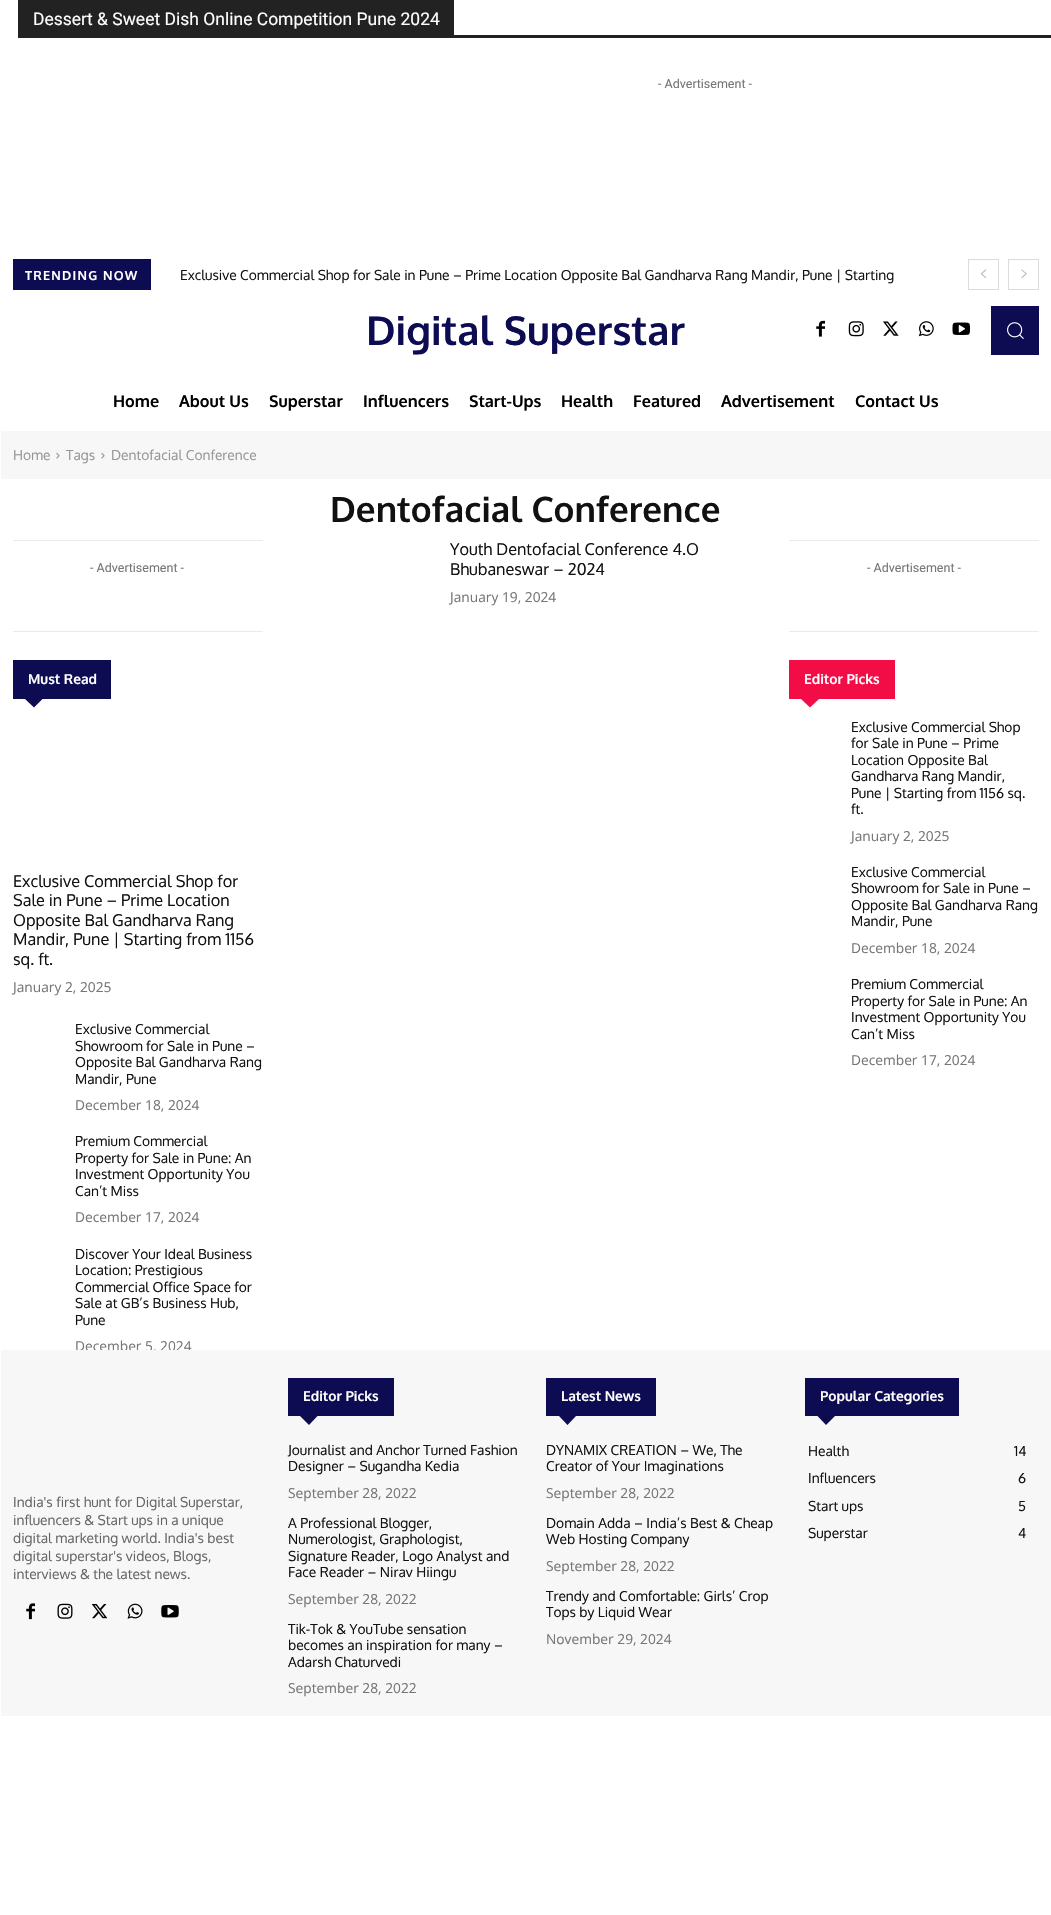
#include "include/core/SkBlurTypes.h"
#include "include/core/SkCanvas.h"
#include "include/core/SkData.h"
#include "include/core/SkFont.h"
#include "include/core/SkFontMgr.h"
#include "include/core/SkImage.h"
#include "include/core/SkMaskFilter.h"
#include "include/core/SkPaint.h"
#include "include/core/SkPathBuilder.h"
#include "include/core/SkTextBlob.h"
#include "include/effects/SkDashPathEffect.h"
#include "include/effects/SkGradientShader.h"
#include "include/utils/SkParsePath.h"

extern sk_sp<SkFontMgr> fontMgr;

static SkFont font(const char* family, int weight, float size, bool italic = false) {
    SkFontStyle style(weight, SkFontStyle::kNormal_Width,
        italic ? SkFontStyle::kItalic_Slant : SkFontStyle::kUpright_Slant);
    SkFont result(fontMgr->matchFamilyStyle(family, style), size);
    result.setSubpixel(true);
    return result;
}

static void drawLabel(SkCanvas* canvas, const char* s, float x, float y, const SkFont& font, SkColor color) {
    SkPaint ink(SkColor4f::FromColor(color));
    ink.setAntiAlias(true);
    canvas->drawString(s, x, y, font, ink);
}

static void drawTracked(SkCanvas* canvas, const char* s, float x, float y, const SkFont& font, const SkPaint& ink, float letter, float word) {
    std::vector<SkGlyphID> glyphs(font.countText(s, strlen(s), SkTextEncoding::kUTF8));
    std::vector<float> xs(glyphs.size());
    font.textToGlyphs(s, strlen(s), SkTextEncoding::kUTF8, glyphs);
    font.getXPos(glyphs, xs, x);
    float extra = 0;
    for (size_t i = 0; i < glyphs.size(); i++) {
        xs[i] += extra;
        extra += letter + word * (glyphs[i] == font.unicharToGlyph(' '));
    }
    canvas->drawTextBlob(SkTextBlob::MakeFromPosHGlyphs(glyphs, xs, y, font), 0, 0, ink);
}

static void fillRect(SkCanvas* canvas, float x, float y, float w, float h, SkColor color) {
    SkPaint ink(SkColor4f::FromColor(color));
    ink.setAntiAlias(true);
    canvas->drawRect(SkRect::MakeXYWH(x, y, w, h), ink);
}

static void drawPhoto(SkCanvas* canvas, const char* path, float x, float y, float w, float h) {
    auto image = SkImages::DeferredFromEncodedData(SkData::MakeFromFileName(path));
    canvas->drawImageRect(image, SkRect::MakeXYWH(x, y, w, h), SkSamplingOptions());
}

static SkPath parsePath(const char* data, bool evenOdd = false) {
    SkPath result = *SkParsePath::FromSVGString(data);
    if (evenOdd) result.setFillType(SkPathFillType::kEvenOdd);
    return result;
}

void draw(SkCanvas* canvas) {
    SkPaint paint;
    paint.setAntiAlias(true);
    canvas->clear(0xFFFFFFFF);
    fillRect(canvas, 18, 35, 1033, 3, 0xFF222222);
    fillRect(canvas, 18, 0, 436, 35, 0xFF222222);
    SkFont font1 = font("Roboto", 400, 17.5f);
    drawLabel(canvas, "Dessert & Sweet Dish Online Competition Pune 2024", 33, 25, font1, 0xFFFFFFFF);
    SkFont font2 = font("Roboto", 400, 12.5f);
    drawLabel(canvas, "- Advertisement -", 658, 88, font2, 0xFF767676);
    fillRect(canvas, 13, 259, 138, 31, 0xFF0D0B52);
    SkFont font3 = font("Oxygen", 700, 12.5f);
    paint.setColor(0xFFFFFFFF);
    drawTracked(canvas, "TRENDING NOW", 25, 280, font3, paint, 1.25f, 0);
    SkFont font4 = font("Oxygen", 400, 13.75f);
    drawLabel(canvas, "Exclusive Commercial Shop for Sale in Pune – Prime Location Opposite Bal Gandharva Rang Mandir, Pune | Starting", 180, 280, font4, 0xFF111111);
    paint.setStroke(true);
    paint.setStrokeWidth(1);
    paint.setColor(0xFFDCDCDC);
    canvas->drawRect(SkRect::MakeXYWH(968.5f, 259.5f, 30, 30), paint);
    drawPhoto(canvas, "assets/img1.png", 980, 269, 7, 9);
    canvas->drawRect(SkRect::MakeXYWH(1008.5f, 259.5f, 30, 30), paint);
    drawPhoto(canvas, "assets/img2.png", 1021, 269, 6, 9);
    SkFont font5 = font("Oxygen", 700, 40);
    drawLabel(canvas, "Digital Superstar", 366, 345, font5, 0xFF0D0B52);
    drawPhoto(canvas, "assets/img3.png", 816, 320, 9, 17);
    drawPhoto(canvas, "assets/img4.png", 848, 321, 16, 16);
    drawPhoto(canvas, "assets/img5.png", 883, 321, 16, 15);
    drawPhoto(canvas, "assets/img6.png", 918, 321, 16, 16);
    drawPhoto(canvas, "assets/img7.png", 952, 322, 18, 13);
    fillRect(canvas, 991, 306, 48, 49, 0xFF0D0B52);
    drawPhoto(canvas, "assets/img8.png", 1007, 322, 17, 17);
    SkFont font6 = font("Oxygen", 700, 16.25f);
    drawLabel(canvas, "Home", 113, 407, font6, 0xFF000000);
    drawLabel(canvas, "About Us", 179, 407, font6, 0xFF000000);
    drawLabel(canvas, "Superstar", 269, 407, font6, 0xFF000000);
    drawLabel(canvas, "Influencers", 363, 407, font6, 0xFF000000);
    drawLabel(canvas, "Start-Ups", 469, 407, font6, 0xFF000000);
    drawLabel(canvas, "Health", 561, 407, font6, 0xFF000000);
    drawLabel(canvas, "Featured", 633, 407, font6, 0xFF000000);
    drawLabel(canvas, "Advertisement", 721, 407, font6, 0xFF000000);
    drawLabel(canvas, "Contact Us", 855, 407, font6, 0xFF000000);
    fillRect(canvas, 1, 431, 1050, 48, 0xFFF7F7F7);
    drawLabel(canvas, "Home", 13, 460, font4, 0xFF969696);
    drawPhoto(canvas, "assets/img9.png", 56, 452, 4, 7);
    drawLabel(canvas, "Tags", 66, 460, font4, 0xFF969696);
    drawPhoto(canvas, "assets/img9.png", 101, 452, 4, 7);
    drawLabel(canvas, "Dentofacial Conference", 111, 460, font4, 0xFF969696);
    SkFont font7 = font("Oxygen", 700, 35);
    drawLabel(canvas, "Dentofacial Conference", 330, 522, font7, 0xFF111111);
    fillRect(canvas, 13, 540, 250, 1, 0xFFEAEAEA);
    fillRect(canvas, 13, 631, 250, 1, 0xFFEAEAEA);
    drawLabel(canvas, "- Advertisement -", 90, 572, font2, 0xFF767676);
    fillRect(canvas, 13, 660, 98, 39, 0xFF0D0B52);
    SkFont font8 = font("Oxygen", 700, 13.75f);
    drawLabel(canvas, "Must Read", 28, 684, font8, 0xFFFFFFFF);
    paint.setStroke(false);
    paint.setColor(0xFF0D0B52);
    canvas->drawPath(parsePath("M25 699H42.5L34 707.5Z"), paint);
    SkFont font9 = font("Oxygen", 400, 16.25f);
    drawLabel(canvas, "Exclusive Commercial Shop for", 13, 887, font9, 0xFF111111);
    drawLabel(canvas, "Sale in Pune – Prime Location", 13, 906, font9, 0xFF111111);
    drawLabel(canvas, "Opposite Bal Gandharva Rang", 13, 926, font9, 0xFF111111);
    drawLabel(canvas, "Mandir, Pune | Starting from 1156", 13, 945, font9, 0xFF111111);
    drawLabel(canvas, "sq. ft.", 13, 965, font9, 0xFF111111);
    SkFont font10 = font("Open Sans", 400, 13.75f);
    drawLabel(canvas, "January 2, 2025", 13, 992, font10, 0xFF767676);
    drawLabel(canvas, "Exclusive Commercial", 75, 1034, font4, 0xFF111111);
    drawLabel(canvas, "Showroom for Sale in Pune –", 75, 1051, font4, 0xFF111111);
    drawLabel(canvas, "Opposite Bal Gandharva Rang", 75, 1067, font4, 0xFF111111);
    drawLabel(canvas, "Mandir, Pune", 75, 1084, font4, 0xFF111111);
    drawLabel(canvas, "December 18, 2024", 75, 1110, font10, 0xFF767676);
    drawLabel(canvas, "Premium Commercial", 75, 1146, font4, 0xFF111111);
    drawLabel(canvas, "Property for Sale in Pune: An", 75, 1163, font4, 0xFF111111);
    drawLabel(canvas, "Investment Opportunity You", 75, 1179, font4, 0xFF111111);
    drawLabel(canvas, "Can’t Miss", 75, 1196, font4, 0xFF111111);
    drawLabel(canvas, "December 17, 2024", 75, 1222, font10, 0xFF767676);
    drawLabel(canvas, "Discover Your Ideal Business", 75, 1259, font4, 0xFF111111);
    drawLabel(canvas, "Location: Prestigious", 75, 1275, font4, 0xFF111111);
    drawLabel(canvas, "Commercial Office Space for", 75, 1292, font4, 0xFF111111);
    drawLabel(canvas, "Sale at GB’s Business Hub,", 75, 1308, font4, 0xFF111111);
    drawLabel(canvas, "Pune", 75, 1325, font4, 0xFF111111);
    drawLabel(canvas, "December 5, 2024", 75, 1351, font10, 0xFF767676);
    drawLabel(canvas, "Youth Dentofacial Conference 4.O", 450, 555, font9, 0xFF111111);
    drawLabel(canvas, "Bhubaneswar – 2024", 450, 575, font9, 0xFF111111);
    drawLabel(canvas, "January 19, 2024", 450, 602, font10, 0xFF767676);
    fillRect(canvas, 789, 540, 250, 1, 0xFFEAEAEA);
    fillRect(canvas, 789, 631, 250, 1, 0xFFEAEAEA);
    drawLabel(canvas, "- Advertisement -", 867, 572, font2, 0xFF767676);
    fillRect(canvas, 789, 660, 106, 39, 0xFFF20D46);
    drawLabel(canvas, "Editor Picks", 804, 684, font8, 0xFFFFFFFF);
    paint.setColor(0xFFF20D46);
    canvas->drawPath(parsePath("M801 699H819L810 707.5Z"), paint);
    drawLabel(canvas, "Exclusive Commercial Shop", 851, 732, font4, 0xFF111111);
    drawLabel(canvas, "for Sale in Pune – Prime", 851, 748, font4, 0xFF111111);
    drawLabel(canvas, "Location Opposite Bal", 851, 765, font4, 0xFF111111);
    drawLabel(canvas, "Gandharva Rang Mandir,", 851, 781, font4, 0xFF111111);
    drawLabel(canvas, "Pune | Starting from 1156 sq.", 851, 798, font4, 0xFF111111);
    drawLabel(canvas, "ft.", 851, 814, font4, 0xFF111111);
    drawLabel(canvas, "January 2, 2025", 851, 841, font10, 0xFF767676);
    drawLabel(canvas, "Exclusive Commercial", 851, 877, font4, 0xFF111111);
    drawLabel(canvas, "Showroom for Sale in Pune –", 851, 893, font4, 0xFF111111);
    drawLabel(canvas, "Opposite Bal Gandharva Rang", 851, 910, font4, 0xFF111111);
    drawLabel(canvas, "Mandir, Pune", 851, 926, font4, 0xFF111111);
    drawLabel(canvas, "December 18, 2024", 851, 953, font10, 0xFF767676);
    drawLabel(canvas, "Premium Commercial", 851, 989, font4, 0xFF111111);
    drawLabel(canvas, "Property for Sale in Pune: An", 851, 1006, font4, 0xFF111111);
    drawLabel(canvas, "Investment Opportunity You", 851, 1022, font4, 0xFF111111);
    drawLabel(canvas, "Can’t Miss", 851, 1039, font4, 0xFF111111);
    drawLabel(canvas, "December 17, 2024", 851, 1065, font10, 0xFF767676);
    fillRect(canvas, 76, 1350, 114, 3, 0xFFFFFFFF);
    fillRect(canvas, 1, 1350, 1050, 366, 0xFFF7F7F7);
    drawLabel(canvas, "India's first hunt for Digital Superstar,", 13, 1507, font4, 0xFF666666);
    drawLabel(canvas, "influencers & Start ups in a unique", 13, 1525, font4, 0xFF666666);
    drawLabel(canvas, "digital marketing world. India's best", 13, 1543, font4, 0xFF666666);
    drawLabel(canvas, "digital superstar's videos, Blogs,", 13, 1561, font4, 0xFF666666);
    drawLabel(canvas, "interviews & the latest news.", 13, 1579, font4, 0xFF666666);
    drawPhoto(canvas, "assets/img10.png", 26, 1603, 9, 17);
    drawPhoto(canvas, "assets/img11.png", 57, 1603, 16, 16);
    drawPhoto(canvas, "assets/img12.png", 91, 1604, 17, 15);
    drawPhoto(canvas, "assets/img13.png", 127, 1603, 16, 16);
    drawPhoto(canvas, "assets/img14.png", 161, 1605, 18, 13);
    fillRect(canvas, 288, 1378, 106, 38, 0xFF0D0B52);
    drawLabel(canvas, "Editor Picks", 303, 1401, font8, 0xFFFFFFFF);
    paint.setColor(0xFF0D0B52);
    canvas->drawPath(parsePath("M300 1416H317.5L309 1425Z"), paint);
    drawLabel(canvas, "Journalist and Anchor Turned Fashion", 288, 1455, font4, 0xFF111111);
    drawLabel(canvas, "Designer – Sugandha Kedia", 288, 1471, font4, 0xFF111111);
    drawLabel(canvas, "September 28, 2022", 288, 1498, font10, 0xFF767676);
    drawLabel(canvas, "A Professional Blogger,", 288, 1528, font4, 0xFF111111);
    drawLabel(canvas, "Numerologist, Graphologist,", 288, 1544, font4, 0xFF111111);
    drawLabel(canvas, "Signature Reader, Logo Analyst and", 288, 1561, font4, 0xFF111111);
    drawLabel(canvas, "Face Reader – Nirav Hiingu", 288, 1577, font4, 0xFF111111);
    drawLabel(canvas, "September 28, 2022", 288, 1604, font10, 0xFF767676);
    drawLabel(canvas, "Tik-Tok & YouTube sensation", 288, 1634, font4, 0xFF111111);
    drawLabel(canvas, "becomes an inspiration for many –", 288, 1650, font4, 0xFF111111);
    drawLabel(canvas, "Adarsh Chaturvedi", 288, 1667, font4, 0xFF111111);
    drawLabel(canvas, "September 28, 2022", 288, 1693, font10, 0xFF767676);
    fillRect(canvas, 546, 1378, 110, 38, 0xFF0D0B52);
    drawLabel(canvas, "Latest News", 561, 1401, font8, 0xFFFFFFFF);
    canvas->drawPath(parsePath("M559 1416H576L567.5 1425Z"), paint);
    drawLabel(canvas, "DYNAMIX CREATION – We, The", 546, 1455, font4, 0xFF111111);
    drawLabel(canvas, "Creator of Your Imaginations", 546, 1471, font4, 0xFF111111);
    drawLabel(canvas, "September 28, 2022", 546, 1498, font10, 0xFF767676);
    drawLabel(canvas, "Domain Adda – India’s Best & Cheap", 546, 1528, font4, 0xFF111111);
    drawLabel(canvas, "Web Hosting Company", 546, 1544, font4, 0xFF111111);
    drawLabel(canvas, "September 28, 2022", 546, 1571, font10, 0xFF767676);
    drawLabel(canvas, "Trendy and Comfortable: Girls’ Crop", 546, 1601, font4, 0xFF111111);
    drawLabel(canvas, "Tops by Liquid Wear", 546, 1617, font4, 0xFF111111);
    drawLabel(canvas, "November 29, 2024", 546, 1644, font10, 0xFF767676);
    fillRect(canvas, 805, 1378, 154, 38, 0xFF0D0B52);
    drawLabel(canvas, "Popular Categories", 820, 1401, font8, 0xFFFFFFFF);
    canvas->drawPath(parsePath("M817.5 1416H835L826 1425Z"), paint);
    drawLabel(canvas, "Health", 808, 1456, font4, 0xFF111111);
    drawLabel(canvas, "14", 1014, 1456, font4, 0xFF111111);
    drawLabel(canvas, "Influencers", 808, 1483, font4, 0xFF111111);
    drawLabel(canvas, "6", 1018, 1483, font4, 0xFF111111);
    drawLabel(canvas, "Start ups", 808, 1511, font4, 0xFF111111);
    drawLabel(canvas, "5", 1018, 1511, font4, 0xFF111111);
    drawLabel(canvas, "Superstar", 808, 1538, font4, 0xFF111111);
    drawLabel(canvas, "4", 1018, 1538, font4, 0xFF111111);
}
